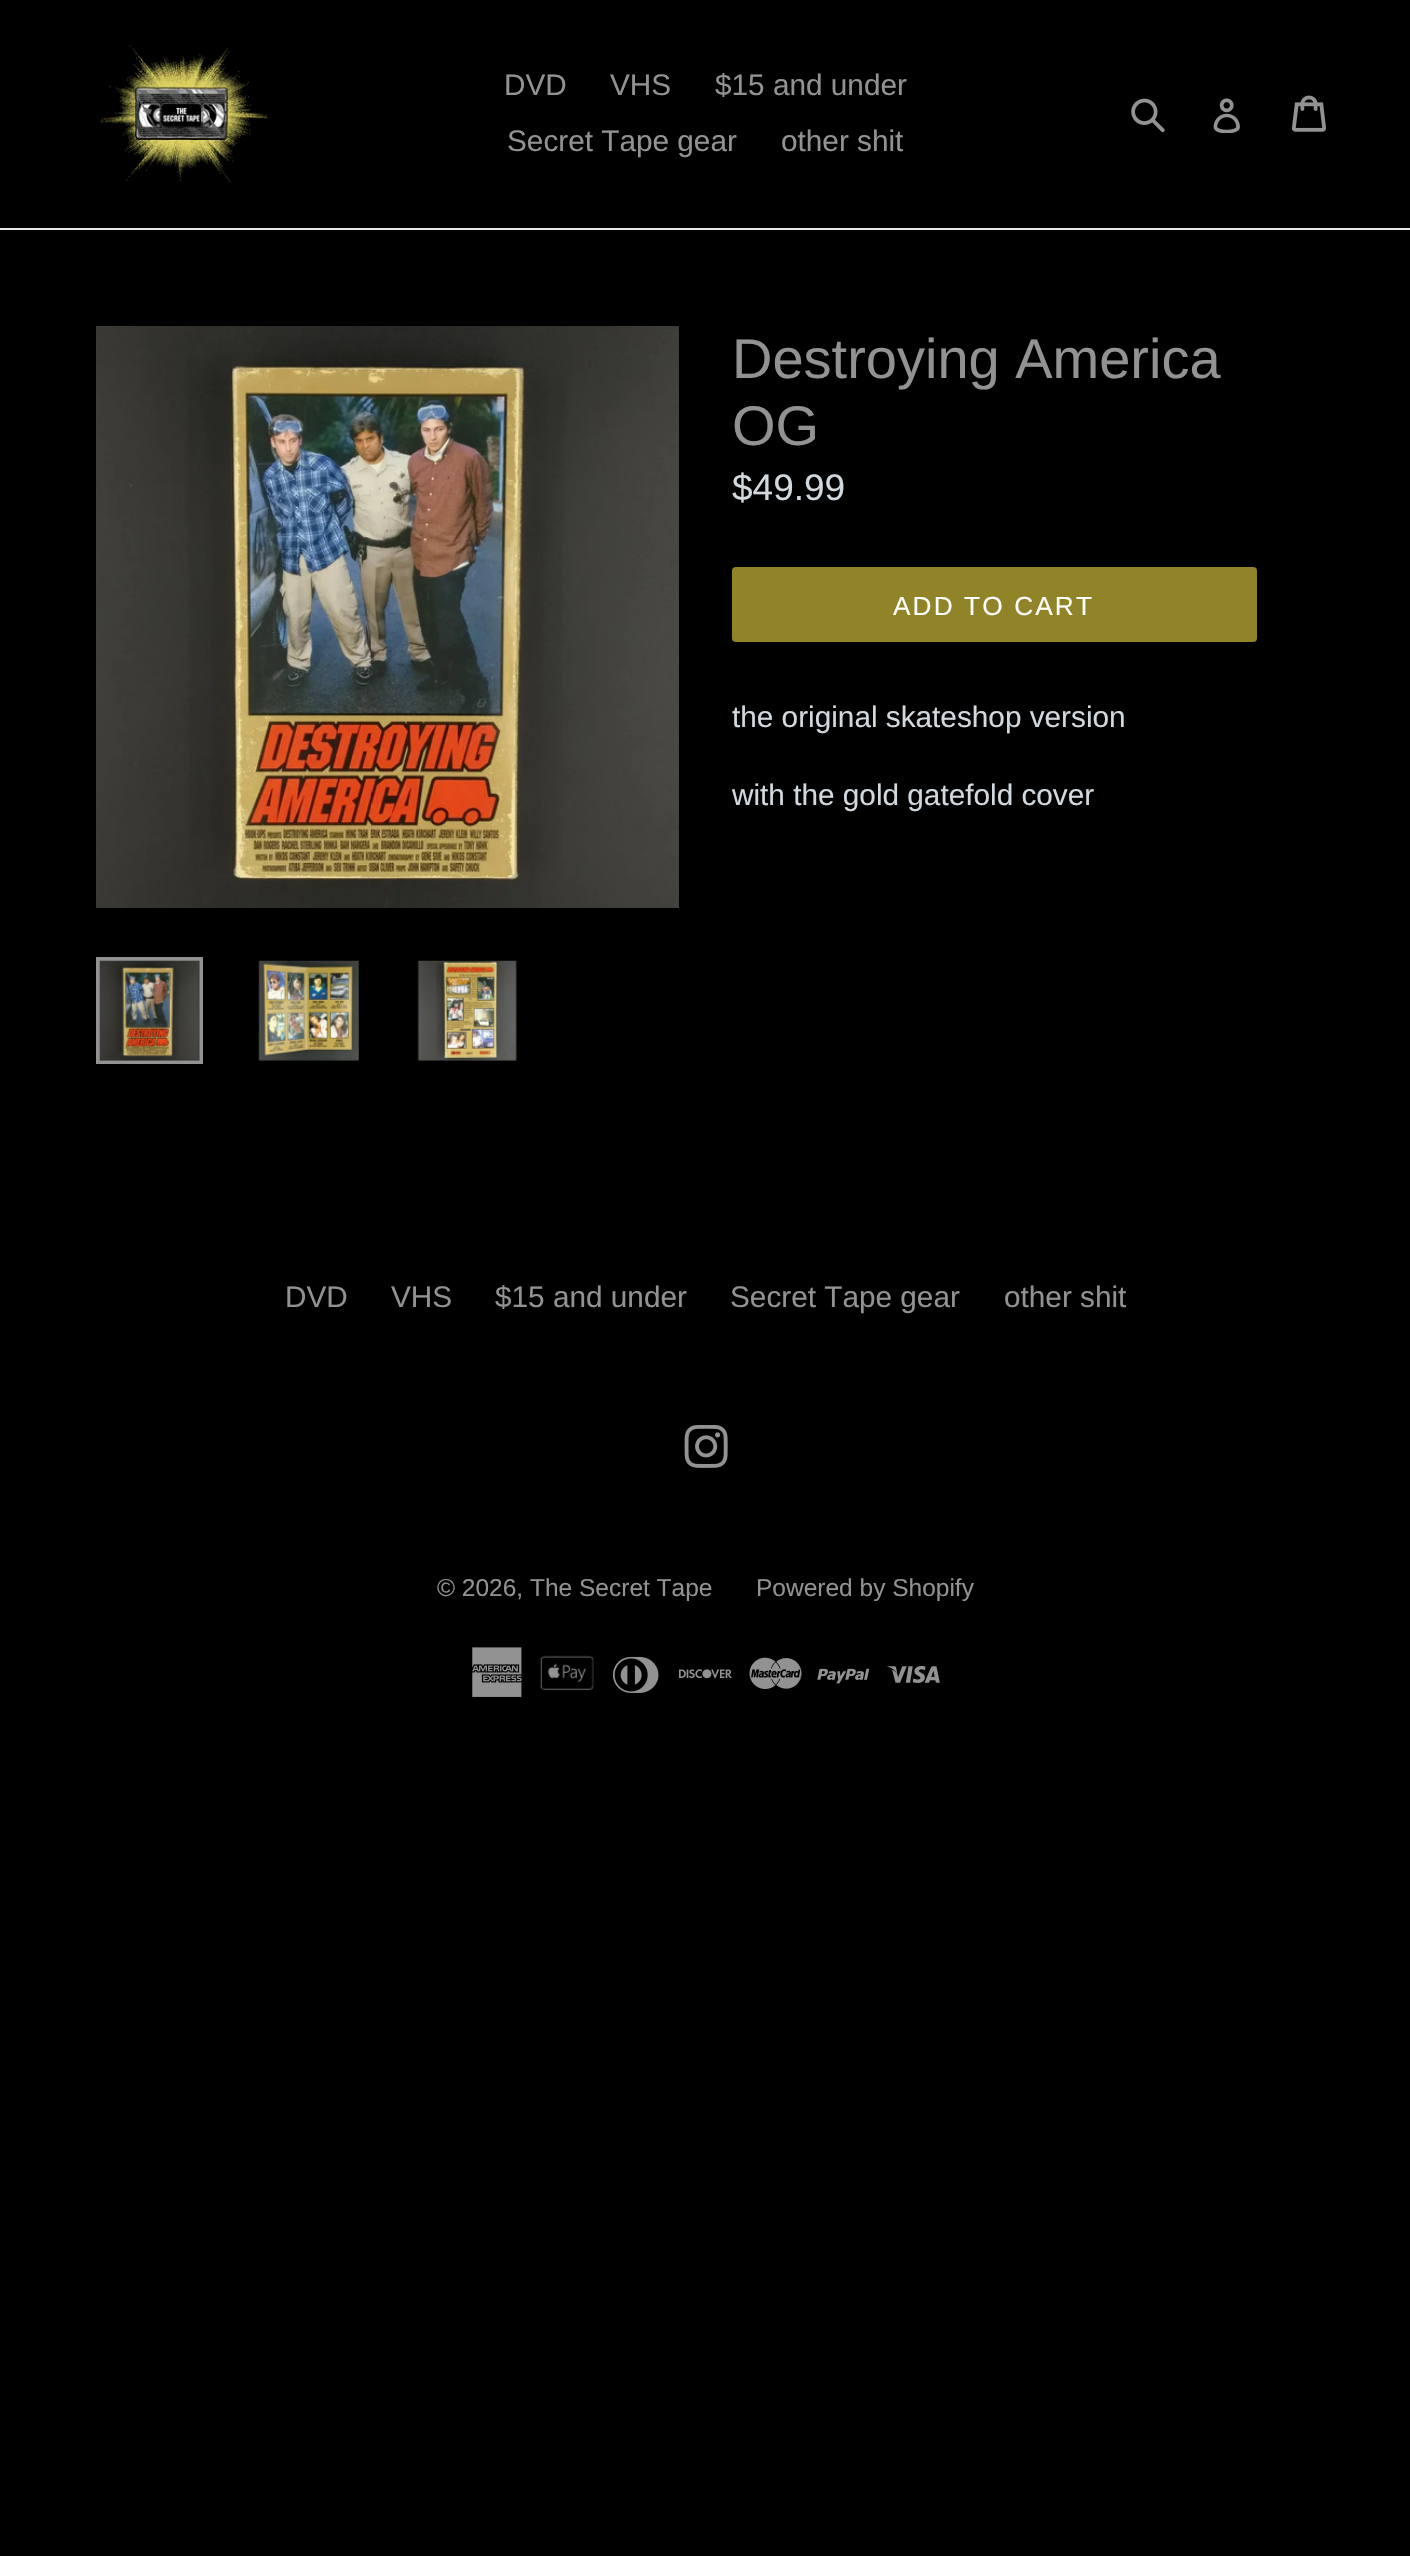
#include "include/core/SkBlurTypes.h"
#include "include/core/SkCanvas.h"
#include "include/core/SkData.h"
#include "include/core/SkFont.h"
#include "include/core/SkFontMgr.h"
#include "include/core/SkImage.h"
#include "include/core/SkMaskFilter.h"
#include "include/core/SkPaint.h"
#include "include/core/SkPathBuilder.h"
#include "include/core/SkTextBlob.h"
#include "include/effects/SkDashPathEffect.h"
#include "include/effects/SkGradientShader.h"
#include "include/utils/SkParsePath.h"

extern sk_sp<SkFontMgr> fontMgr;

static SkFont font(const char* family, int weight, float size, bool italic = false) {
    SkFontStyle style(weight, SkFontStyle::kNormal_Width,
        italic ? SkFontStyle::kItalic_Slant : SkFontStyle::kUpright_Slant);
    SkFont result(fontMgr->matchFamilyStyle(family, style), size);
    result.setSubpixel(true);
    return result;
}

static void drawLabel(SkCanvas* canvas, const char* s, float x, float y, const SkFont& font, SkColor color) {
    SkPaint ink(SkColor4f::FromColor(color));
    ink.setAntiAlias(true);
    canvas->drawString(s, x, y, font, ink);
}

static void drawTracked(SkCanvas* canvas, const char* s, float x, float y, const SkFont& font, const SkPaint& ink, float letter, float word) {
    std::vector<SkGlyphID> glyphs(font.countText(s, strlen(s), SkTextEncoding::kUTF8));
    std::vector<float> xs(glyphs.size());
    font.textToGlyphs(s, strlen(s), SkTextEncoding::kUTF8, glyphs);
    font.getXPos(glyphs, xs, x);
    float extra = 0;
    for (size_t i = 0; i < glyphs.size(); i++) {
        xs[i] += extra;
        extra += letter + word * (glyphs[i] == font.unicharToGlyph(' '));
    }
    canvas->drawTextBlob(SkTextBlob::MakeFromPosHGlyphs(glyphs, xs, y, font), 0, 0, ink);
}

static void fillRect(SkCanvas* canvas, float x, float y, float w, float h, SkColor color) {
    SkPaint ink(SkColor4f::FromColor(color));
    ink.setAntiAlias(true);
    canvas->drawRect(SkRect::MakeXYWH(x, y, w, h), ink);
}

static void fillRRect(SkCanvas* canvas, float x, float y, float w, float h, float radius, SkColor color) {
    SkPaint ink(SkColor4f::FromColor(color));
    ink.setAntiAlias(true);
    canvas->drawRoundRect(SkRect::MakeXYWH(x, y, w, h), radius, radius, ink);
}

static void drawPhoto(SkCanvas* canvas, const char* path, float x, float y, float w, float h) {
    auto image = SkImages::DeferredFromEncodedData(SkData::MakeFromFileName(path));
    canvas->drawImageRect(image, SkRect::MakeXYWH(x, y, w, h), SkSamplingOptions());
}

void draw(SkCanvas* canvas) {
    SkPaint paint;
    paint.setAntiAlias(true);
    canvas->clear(0xFF000000);
    fillRect(canvas, 0, 228, 1410, 2, 0xFFE8E9EB);
    drawPhoto(canvas, "assets/img1.png", 100, 45, 168, 138);
    SkFont font1 = font("Liberation Sans", 400, 29.75f);
    drawLabel(canvas, "DVD", 504, 95, font1, 0xFF929292);
    drawLabel(canvas, "VHS", 610, 95, font1, 0xFF929292);
    drawLabel(canvas, "$15 and under", 715, 95, font1, 0xFF929292);
    drawLabel(canvas, "Secret Tape gear", 507, 151, font1, 0xFF929292);
    drawLabel(canvas, "other shit", 781, 151, font1, 0xFF929292);
    drawPhoto(canvas, "assets/img2.png", 1131, 98, 34, 35);
    drawPhoto(canvas, "assets/img3.png", 1213, 98, 27, 35);
    drawPhoto(canvas, "assets/img4.png", 1292, 95, 34, 37);
    drawPhoto(canvas, "assets/img5.png", 96, 326, 583, 582);
    paint.setStroke(true);
    paint.setStrokeWidth(4);
    paint.setColor(0xFF929292);
    canvas->drawRect(SkRect::MakeXYWH(98, 959, 103, 103), paint);
    drawPhoto(canvas, "assets/img6.png", 99, 960, 101, 101);
    drawPhoto(canvas, "assets/img7.png", 258, 960, 101, 101);
    drawPhoto(canvas, "assets/img8.png", 417, 960, 100, 101);
    SkFont font2 = font("Liberation Sans", 400, 56);
    drawLabel(canvas, "Destroying America", 732, 378, font2, 0xFF929292);
    drawLabel(canvas, "OG", 732, 445, font2, 0xFF929292);
    SkFont font3 = font("Liberation Sans", 400, 37);
    drawLabel(canvas, "$49.99", 732, 500, font3, 0xFFD1D8DE);
    fillRRect(canvas, 732, 567, 525, 75, 4, 0xFF918328);
    SkFont font4 = font("Liberation Sans", 400, 26.25f);
    paint.setStroke(false);
    paint.setColor(0xFFFFFFFF);
    drawTracked(canvas, "ADD TO CART", 893, 615, font4, paint, 2.1f, 0);
    drawLabel(canvas, "the original skateshop version", 732, 727, font1, 0xFFD1D8DE);
    drawLabel(canvas, "with the gold gatefold cover", 732, 805, font1, 0xFFD1D8DE);
    drawLabel(canvas, "DVD", 285, 1307, font1, 0xFF929292);
    drawLabel(canvas, "VHS", 391, 1307, font1, 0xFF929292);
    drawLabel(canvas, "$15 and under", 495, 1307, font1, 0xFF929292);
    drawLabel(canvas, "Secret Tape gear", 730, 1307, font1, 0xFF929292);
    drawLabel(canvas, "other shit", 1004, 1307, font1, 0xFF929292);
    drawPhoto(canvas, "assets/img9.png", 684, 1425, 44, 43);
    SkFont font5 = font("Liberation Sans", 400, 24.5f);
    drawLabel(canvas, "© 2026, The Secret Tape", 437, 1596, font5, 0xFF929292);
    drawLabel(canvas, "Powered by Shopify", 756, 1596, font5, 0xFF929292);
    drawPhoto(canvas, "assets/img10.png", 472, 1647, 50, 50);
    drawPhoto(canvas, "assets/img11.png", 540, 1655, 54, 35);
    drawPhoto(canvas, "assets/img12.png", 612, 1656, 47, 37);
    drawPhoto(canvas, "assets/img13.png", 679, 1669, 53, 10);
    drawPhoto(canvas, "assets/img14.png", 749, 1657, 53, 32);
    drawPhoto(canvas, "assets/img15.png", 817, 1668, 53, 16);
    drawPhoto(canvas, "assets/img16.png", 887, 1665, 53, 18);
}
